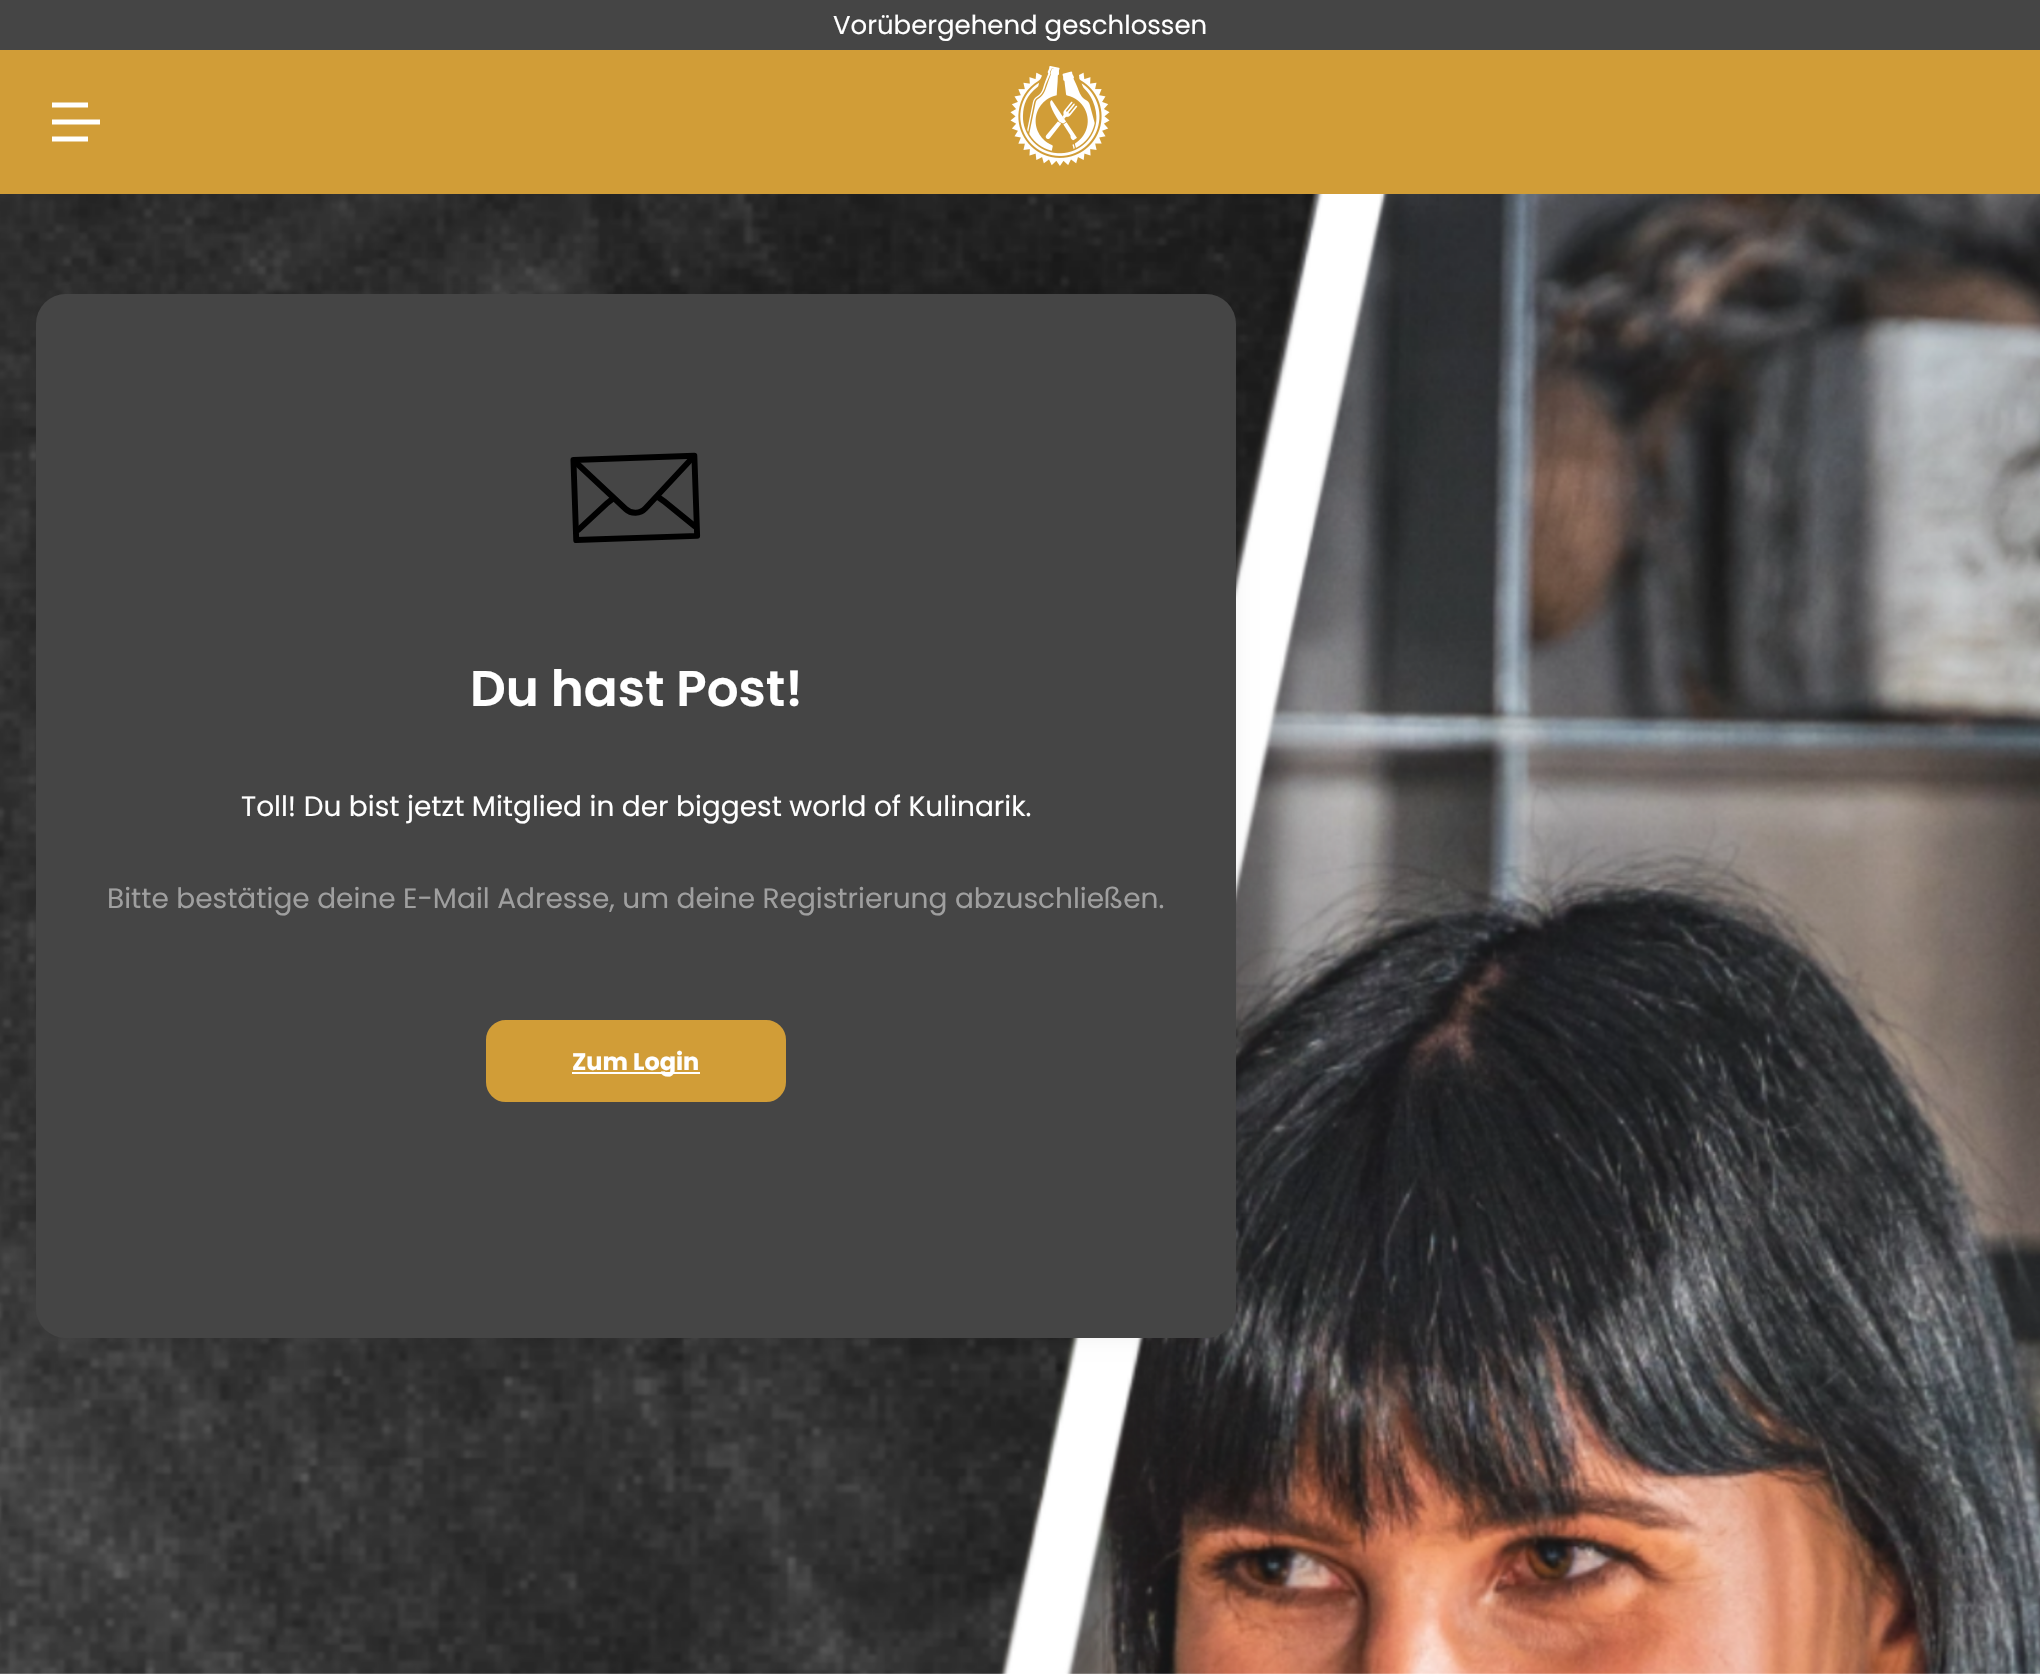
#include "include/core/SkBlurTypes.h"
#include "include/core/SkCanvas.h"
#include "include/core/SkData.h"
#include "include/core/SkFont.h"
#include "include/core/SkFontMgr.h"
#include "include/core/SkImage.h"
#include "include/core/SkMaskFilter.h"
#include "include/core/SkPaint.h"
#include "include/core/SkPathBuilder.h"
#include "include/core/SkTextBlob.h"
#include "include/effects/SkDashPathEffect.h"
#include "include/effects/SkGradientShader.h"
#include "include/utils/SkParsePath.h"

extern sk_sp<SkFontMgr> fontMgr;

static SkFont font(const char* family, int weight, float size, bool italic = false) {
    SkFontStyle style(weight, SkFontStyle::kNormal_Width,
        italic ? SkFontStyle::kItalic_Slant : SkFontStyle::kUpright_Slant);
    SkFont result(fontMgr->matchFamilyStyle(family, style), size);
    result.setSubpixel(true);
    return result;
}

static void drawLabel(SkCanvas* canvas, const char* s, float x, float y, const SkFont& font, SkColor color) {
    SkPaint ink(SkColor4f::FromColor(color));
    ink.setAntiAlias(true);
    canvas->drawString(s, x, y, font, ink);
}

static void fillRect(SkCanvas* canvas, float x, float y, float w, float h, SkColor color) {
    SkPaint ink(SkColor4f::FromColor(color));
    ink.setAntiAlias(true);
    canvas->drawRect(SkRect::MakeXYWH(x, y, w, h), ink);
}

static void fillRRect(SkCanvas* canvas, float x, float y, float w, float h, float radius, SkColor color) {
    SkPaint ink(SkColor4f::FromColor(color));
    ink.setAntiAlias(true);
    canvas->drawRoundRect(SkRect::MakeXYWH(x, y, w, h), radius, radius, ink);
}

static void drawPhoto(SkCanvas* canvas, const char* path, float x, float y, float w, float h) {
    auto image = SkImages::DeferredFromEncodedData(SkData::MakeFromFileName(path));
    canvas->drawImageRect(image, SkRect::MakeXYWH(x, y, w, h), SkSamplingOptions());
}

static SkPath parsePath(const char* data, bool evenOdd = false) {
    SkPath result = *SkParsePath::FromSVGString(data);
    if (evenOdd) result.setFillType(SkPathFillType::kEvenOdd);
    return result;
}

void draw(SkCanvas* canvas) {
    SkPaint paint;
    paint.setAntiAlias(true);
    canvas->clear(0xFFFFFFFF);
    fillRect(canvas, 0, 50, 2040, 144, 0xFFD19D37);
    fillRect(canvas, 0, 0, 2040, 50, 0xFF454545);
    SkFont font1 = font("Poppins", 400, 26);
    drawLabel(canvas, "Vorübergehend geschlossen", 833, 34, font1, 0xFFFFFFFF);
    paint.setStroke(true);
    paint.setStrokeWidth(4.8f);
    paint.setColor(0xFFFFFFFF);
    canvas->drawPath(parsePath("M52 105H88M52 122H100M52 139H88"), paint);
    drawPhoto(canvas, "assets/img1.png", 1010, 66, 100, 100);
    drawPhoto(canvas, "assets/img2.png", 0, 194, 2040, 1480);
    paint.setStroke(false);
    paint.setColor(0x0D000000);
    paint.setMaskFilter(SkMaskFilter::MakeBlur(kNormal_SkBlurStyle, 10));
    canvas->drawRoundRect(SkRect::MakeXYWH(36, 294, 1200, 1044), 30, 30, paint);
    paint.setMaskFilter(nullptr);
    fillRRect(canvas, 36, 294, 1200, 1044, 30, 0xFF454545);
    drawPhoto(canvas, "assets/img3.png", 570, 452, 131, 91);
    SkFont font2 = font("Poppins", 600, 50);
    drawLabel(canvas, "Du hast Post!", 470, 706, font2, 0xFFFFFFFF);
    SkFont font3 = font("Poppins", 400, 28);
    drawLabel(canvas, "Toll! Du bist jetzt Mitglied in der biggest world of Kulinarik.", 241, 816, font3, 0xFFFFFFFF);
    drawLabel(canvas, "Bitte bestätige deine E-Mail Adresse, um deine Registrierung abzuschließen.", 107, 908, font3, 0xFF9F9F9F);
    paint.setColor(0xFFD19D37);
    canvas->drawRoundRect(SkRect::MakeXYWH(488, 1022, 296, 78), 18, 18, paint);
    paint.setStroke(true);
    paint.setStrokeWidth(4);
    canvas->drawRoundRect(SkRect::MakeXYWH(488, 1022, 296, 78), 18, 18, paint);
    fillRect(canvas, 572, 1072, 128, 2, 0xFFFFFFFF);
    SkFont font4 = font("Poppins", 700, 24);
    drawLabel(canvas, "Zum Login", 572, 1070, font4, 0xFFFFFFFF);
}
